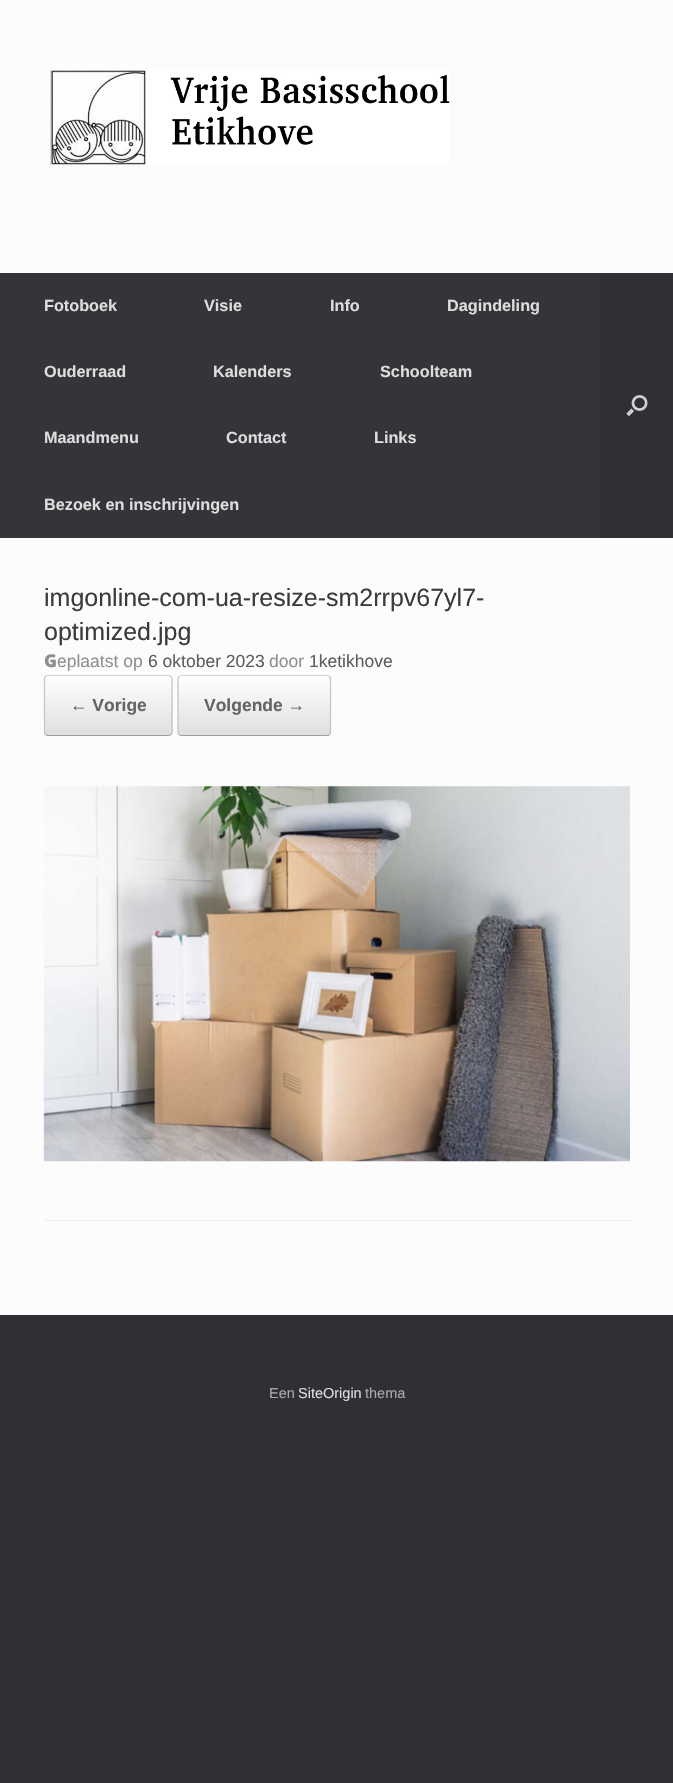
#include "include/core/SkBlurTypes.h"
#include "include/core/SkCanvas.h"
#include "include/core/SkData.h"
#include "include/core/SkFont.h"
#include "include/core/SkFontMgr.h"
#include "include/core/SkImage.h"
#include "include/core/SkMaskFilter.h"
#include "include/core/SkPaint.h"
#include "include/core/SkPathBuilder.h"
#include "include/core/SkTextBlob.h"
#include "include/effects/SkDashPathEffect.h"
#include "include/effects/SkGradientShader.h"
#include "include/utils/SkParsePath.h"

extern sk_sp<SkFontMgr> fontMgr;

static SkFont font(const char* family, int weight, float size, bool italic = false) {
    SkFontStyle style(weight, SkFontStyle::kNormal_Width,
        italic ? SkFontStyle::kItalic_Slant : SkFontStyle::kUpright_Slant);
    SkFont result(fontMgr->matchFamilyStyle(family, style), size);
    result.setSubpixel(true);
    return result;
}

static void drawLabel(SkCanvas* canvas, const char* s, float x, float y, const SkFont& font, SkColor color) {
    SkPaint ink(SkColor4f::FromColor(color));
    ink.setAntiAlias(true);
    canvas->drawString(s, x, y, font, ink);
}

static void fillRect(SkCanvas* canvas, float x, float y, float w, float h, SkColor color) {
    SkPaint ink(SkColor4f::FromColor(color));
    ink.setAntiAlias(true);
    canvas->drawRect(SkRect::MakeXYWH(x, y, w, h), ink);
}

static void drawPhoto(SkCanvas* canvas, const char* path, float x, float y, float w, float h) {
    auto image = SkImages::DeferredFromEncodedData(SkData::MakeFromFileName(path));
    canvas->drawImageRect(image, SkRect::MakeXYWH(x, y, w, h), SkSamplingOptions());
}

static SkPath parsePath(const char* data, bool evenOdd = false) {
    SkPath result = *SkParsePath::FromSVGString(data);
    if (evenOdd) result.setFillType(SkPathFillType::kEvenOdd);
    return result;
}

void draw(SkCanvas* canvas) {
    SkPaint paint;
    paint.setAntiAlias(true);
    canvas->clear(0xFF2F3033);
    fillRect(canvas, 0, 0, 673, 273, 0xFFFCFCFC);
    drawPhoto(canvas, "assets/img1.png", 50, 70, 400, 95);
    fillRect(canvas, 0, 273, 600, 265, 0xFF343538);
    SkFont font1 = font("Liberation Sans", 700, 16.25f);
    drawLabel(canvas, "Fotoboek", 44, 311, font1, 0xFFDDDDDD);
    drawLabel(canvas, "Visie", 204, 311, font1, 0xFFDDDDDD);
    drawLabel(canvas, "Info", 330, 311, font1, 0xFFDDDDDD);
    drawLabel(canvas, "Dagindeling", 447, 311, font1, 0xFFDDDDDD);
    drawLabel(canvas, "Ouderraad", 44, 377, font1, 0xFFDDDDDD);
    drawLabel(canvas, "Kalenders", 213, 377, font1, 0xFFDDDDDD);
    drawLabel(canvas, "Schoolteam", 380, 377, font1, 0xFFDDDDDD);
    drawLabel(canvas, "Maandmenu", 44, 443, font1, 0xFFDDDDDD);
    drawLabel(canvas, "Contact", 226, 443, font1, 0xFFDDDDDD);
    drawLabel(canvas, "Links", 374, 443, font1, 0xFFDDDDDD);
    drawLabel(canvas, "Bezoek en inschrijvingen", 44, 510, font1, 0xFFDDDDDD);
    drawPhoto(canvas, "assets/img2.png", 626, 395, 22, 22);
    fillRect(canvas, 0, 538, 673, 777, 0xFFFCFCFC);
    fillRect(canvas, 44, 1220, 586, 1, 0xFFEEEEEE);
    SkFont font2 = font("Liberation Sans", 400, 25);
    drawLabel(canvas, "imgonline-com-ua-resize-sm2rrpv67yl7-", 44, 606, font2, 0xFF3B3B3B);
    drawLabel(canvas, "optimized.jpg", 44, 640, font2, 0xFF3B3B3B);
    SkFont font3 = font("Noto Sans", 900, 17.5f);
    drawLabel(canvas, "G", 44, 667, font3, 0xFF8F8F8F);
    SkFont font4 = font("Liberation Sans", 400, 17.5f);
    drawLabel(canvas, "eplaatst op", 57, 667, font4, 0xFF8F8F8F);
    drawLabel(canvas, "6 oktober 2023", 148, 667, font4, 0xFF5E5E5E);
    drawLabel(canvas, "door", 269, 667, font4, 0xFF8F8F8F);
    drawLabel(canvas, "1ketikhove", 309, 667, font4, 0xFF5E5E5E);
    canvas->save();
    canvas->clipPath(parsePath("M48 675H169C171 675 173 677 173 679V732C173 734 171 736 169 736H48C46 736 44 734 44 732V679C44 677 46 675 48 675Z"), true);
    {
        const SkColor colors[] = {0xFFDFDFDF, 0xFFFFFFFF};
        const float stops[] = {0, 1};
        const SkPoint ends[] = {{45, 676}, {45, 618}};
        paint.setShader(SkGradientShader::MakeLinear(ends, colors, stops, 2, SkTileMode::kClamp));
        paint.setAlpha(255);
    }
    canvas->drawRect(SkRect::MakeXYWH(44, 675, 129, 1), paint);
    {
        const SkColor colors[] = {0xFFDFDFDF, 0xFFFFFFFF};
        const float stops[] = {0, 1};
        const SkPoint ends[] = {{45, 735}, {45, 676}};
        paint.setShader(SkGradientShader::MakeLinear(ends, colors, stops, 2, SkTileMode::kClamp));
        paint.setAlpha(255);
    }
    canvas->drawRect(SkRect::MakeXYWH(44, 676, 129, 59), paint);
    {
        const SkColor colors[] = {0xFFDFDFDF, 0xFFFFFFFF};
        const float stops[] = {0, 1};
        const SkPoint ends[] = {{45, 794}, {45, 735}};
        paint.setShader(SkGradientShader::MakeLinear(ends, colors, stops, 2, SkTileMode::kClamp));
        paint.setAlpha(255);
    }
    canvas->drawRect(SkRect::MakeXYWH(44, 735, 129, 1), paint);
    canvas->restore();
    paint.setStroke(true);
    paint.setStrokeWidth(1.2f);
    paint.setShader(nullptr);
    paint.setColor(0xFFD2D2D2);
    canvas->drawPath(parsePath("M45.5 676.5L47.5 675.5H169L171 676.5"), paint);
    paint.setColor(0xFFC3C3C3);
    canvas->drawPath(parsePath("M171 676.5L172 678.5V733L171 734.5"), paint);
    paint.setColor(0xFF9F9F9F);
    canvas->drawPath(parsePath("M171 734.5L169 735.5H47.5L45.5 734.5"), paint);
    paint.setColor(0xFFC3C3C3);
    canvas->drawPath(parsePath("M45.5 734.5L44.5 733V678.5L45.5 676.5"), paint);
    SkFont font5 = font("Liberation Sans", 700, 17.5f);
    drawLabel(canvas, "← Vorige", 70, 711, font5, 0xFF646464);
    canvas->save();
    canvas->clipPath(parsePath("M182 675H327C329 675 331 677 331 679V732C331 734 329 736 327 736H182C180 736 178 734 178 732V679C178 677 180 675 182 675Z"), true);
    paint.setStroke(false);
    {
        const SkColor colors[] = {0xFFDFDFDF, 0xFFFFFFFF};
        const float stops[] = {0, 1};
        const SkPoint ends[] = {{179, 735}, {179, 676}};
        paint.setShader(SkGradientShader::MakeLinear(ends, colors, stops, 2, SkTileMode::kClamp));
        paint.setAlpha(255);
    }
    canvas->drawRect(SkRect::MakeXYWH(178, 676, 153, 59), paint);
    canvas->restore();
    paint.setStroke(true);
    paint.setShader(nullptr);
    paint.setColor(0xFFD2D2D2);
    canvas->drawPath(parsePath("M179 676.5L181 675.5H328L329.5 676.5"), paint);
    paint.setColor(0xFFC3C3C3);
    canvas->drawPath(parsePath("M329.5 676.5L330.5 678.5V733L329.5 734.5"), paint);
    paint.setColor(0xFF9F9F9F);
    canvas->drawPath(parsePath("M329.5 734.5L328 735.5H205.5H181L179 734.5"), paint);
    paint.setColor(0xFFC3C3C3);
    canvas->drawPath(parsePath("M179 734.5L178 733V678.5L179 676.5"), paint);
    drawLabel(canvas, "Volgende →", 204, 711, font5, 0xFF646464);
    drawPhoto(canvas, "assets/img3.png", 43, 786, 587, 376);
    SkFont font6 = font("Liberation Sans", 400, 14.5f);
    drawLabel(canvas, "Een", 269, 1398, font6, 0xFFAAAAAA);
    drawLabel(canvas, "SiteOrigin", 298, 1398, font6, 0xFFDDDDDD);
    drawLabel(canvas, "thema", 365, 1398, font6, 0xFFAAAAAA);
}
